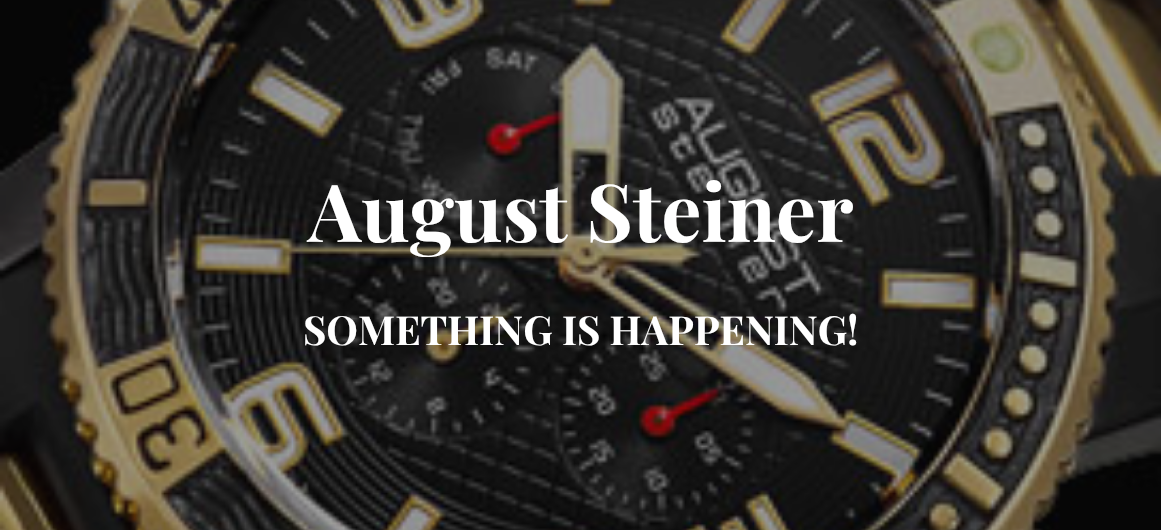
#include "include/core/SkBlurTypes.h"
#include "include/core/SkCanvas.h"
#include "include/core/SkData.h"
#include "include/core/SkFont.h"
#include "include/core/SkFontMgr.h"
#include "include/core/SkImage.h"
#include "include/core/SkMaskFilter.h"
#include "include/core/SkPaint.h"
#include "include/core/SkPathBuilder.h"
#include "include/core/SkTextBlob.h"
#include "include/effects/SkDashPathEffect.h"
#include "include/effects/SkGradientShader.h"
#include "include/utils/SkParsePath.h"

extern sk_sp<SkFontMgr> fontMgr;

static SkFont font(const char* family, int weight, float size, bool italic = false) {
    SkFontStyle style(weight, SkFontStyle::kNormal_Width,
        italic ? SkFontStyle::kItalic_Slant : SkFontStyle::kUpright_Slant);
    SkFont result(fontMgr->matchFamilyStyle(family, style), size);
    result.setSubpixel(true);
    return result;
}

static void drawLabel(SkCanvas* canvas, const char* s, float x, float y, const SkFont& font, SkColor color) {
    SkPaint ink(SkColor4f::FromColor(color));
    ink.setAntiAlias(true);
    canvas->drawString(s, x, y, font, ink);
}

static void drawPhoto(SkCanvas* canvas, const char* path, float x, float y, float w, float h) {
    auto image = SkImages::DeferredFromEncodedData(SkData::MakeFromFileName(path));
    canvas->drawImageRect(image, SkRect::MakeXYWH(x, y, w, h), SkSamplingOptions());
}

void draw(SkCanvas* canvas) {
    SkPaint paint;
    paint.setAntiAlias(true);
    canvas->clear(0xFFFFFFFF);
    drawPhoto(canvas, "assets/img1.png", 0, 0, 1161, 530);
    SkFont font1 = font("Playfair Display", 700, 80);
    drawLabel(canvas, "August Steiner", 308, 242, font1, 0xFFFFFFFF);
    SkFont font2 = font("Playfair Display", 700, 40);
    drawLabel(canvas, "SOMETHING IS HAPPENING!", 303, 345, font2, 0xFFFFFFFF);
}
